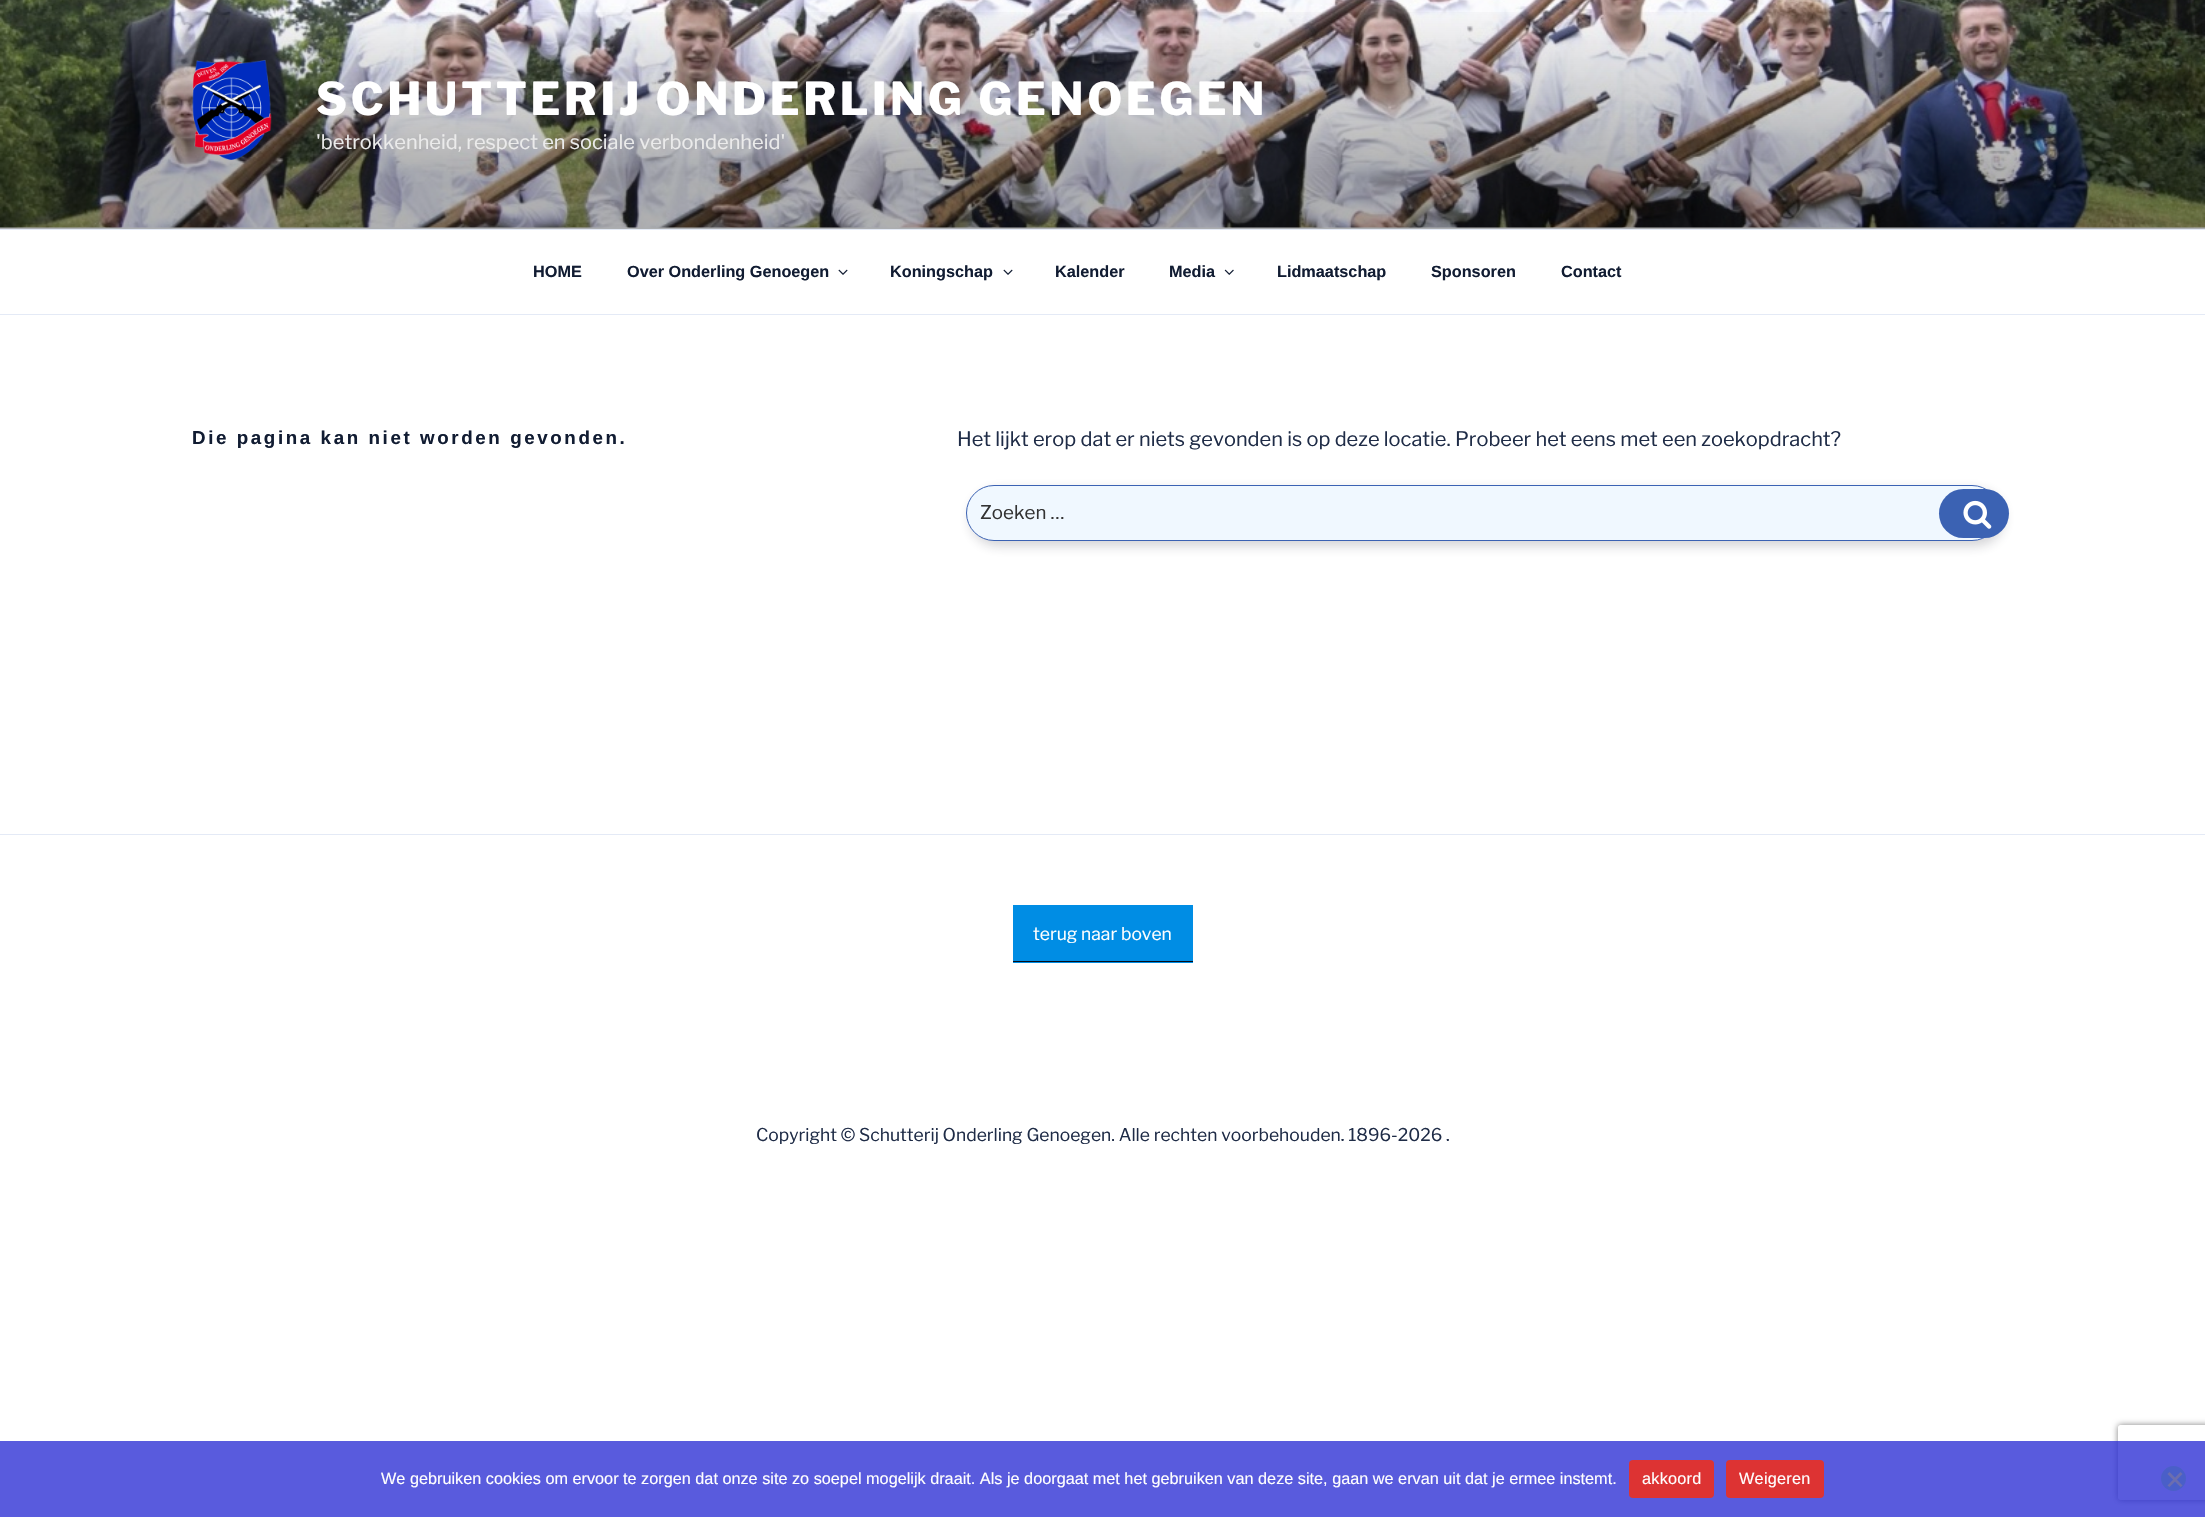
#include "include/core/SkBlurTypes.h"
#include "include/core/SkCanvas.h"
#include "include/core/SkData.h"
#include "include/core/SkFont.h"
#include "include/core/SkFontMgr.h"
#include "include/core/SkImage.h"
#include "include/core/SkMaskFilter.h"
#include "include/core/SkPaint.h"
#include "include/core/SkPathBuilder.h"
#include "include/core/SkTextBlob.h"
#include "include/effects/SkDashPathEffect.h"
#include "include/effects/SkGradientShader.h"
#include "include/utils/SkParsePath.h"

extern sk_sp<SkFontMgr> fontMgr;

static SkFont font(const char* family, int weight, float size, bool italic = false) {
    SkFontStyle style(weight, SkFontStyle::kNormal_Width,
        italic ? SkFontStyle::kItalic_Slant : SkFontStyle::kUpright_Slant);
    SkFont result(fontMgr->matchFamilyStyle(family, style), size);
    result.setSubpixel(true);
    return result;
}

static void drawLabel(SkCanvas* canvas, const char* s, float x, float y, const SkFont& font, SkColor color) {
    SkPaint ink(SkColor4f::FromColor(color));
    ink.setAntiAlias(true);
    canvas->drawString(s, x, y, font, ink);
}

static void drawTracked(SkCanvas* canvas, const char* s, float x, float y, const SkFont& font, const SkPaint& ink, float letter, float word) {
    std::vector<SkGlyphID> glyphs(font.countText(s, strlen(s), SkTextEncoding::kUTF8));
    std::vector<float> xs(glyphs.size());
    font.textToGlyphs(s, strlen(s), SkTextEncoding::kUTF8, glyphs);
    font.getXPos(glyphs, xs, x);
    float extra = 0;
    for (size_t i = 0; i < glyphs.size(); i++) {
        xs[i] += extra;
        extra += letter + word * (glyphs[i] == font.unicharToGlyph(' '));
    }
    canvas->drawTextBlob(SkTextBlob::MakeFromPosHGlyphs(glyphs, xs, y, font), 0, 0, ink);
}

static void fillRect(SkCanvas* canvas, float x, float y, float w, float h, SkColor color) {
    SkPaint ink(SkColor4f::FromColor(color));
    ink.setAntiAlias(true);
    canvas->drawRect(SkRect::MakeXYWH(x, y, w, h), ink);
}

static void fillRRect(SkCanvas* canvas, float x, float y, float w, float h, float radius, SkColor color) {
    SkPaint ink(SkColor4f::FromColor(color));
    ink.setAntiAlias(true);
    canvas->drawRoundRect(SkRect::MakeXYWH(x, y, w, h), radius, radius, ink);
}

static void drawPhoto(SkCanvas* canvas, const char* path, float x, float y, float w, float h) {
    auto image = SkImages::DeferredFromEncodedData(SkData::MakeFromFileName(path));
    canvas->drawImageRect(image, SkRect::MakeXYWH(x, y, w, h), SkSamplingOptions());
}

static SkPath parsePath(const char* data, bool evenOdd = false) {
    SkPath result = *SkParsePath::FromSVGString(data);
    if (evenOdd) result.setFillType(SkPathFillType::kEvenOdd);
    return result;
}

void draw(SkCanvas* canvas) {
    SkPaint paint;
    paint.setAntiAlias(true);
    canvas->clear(0xFFFFFFFF);
    fillRect(canvas, 0, 227, 2205, 2, 0xFFF7F9FC);
    drawPhoto(canvas, "assets/img1.png", 0, 0, 2205, 228);
    {
        const SkColor colors[] = {0x00000000, 0x4D000000, 0x4D000000};
        const float stops[] = {0, 0.75f, 1};
        const SkPoint ends[] = {{1103, 0}, {1103, 229}};
        paint.setShader(SkGradientShader::MakeLinear(ends, colors, stops, 3, SkTileMode::kClamp));
        paint.setAlpha(255);
    }
    canvas->drawRect(SkRect::MakeXYWH(0, 12, 2205, 217), paint);
    drawPhoto(canvas, "assets/img2.png", 192, 60, 80, 100);
    SkFont font1 = font("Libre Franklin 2", 100, 45);
    paint.setShader(nullptr);
    paint.setColor(0xFFFFFFFF);
    drawTracked(canvas, "SCHUTTERIJ ONDERLING GENOEGEN", 316, 115, font1, paint, 3.6f, 0);
    SkFont font2 = font("Libre Franklin", 100, 20);
    drawLabel(canvas, "'betrokkenheid, respect en sociale verbondenheid'", 316, 149, font2, 0xFFEBEBEB);
    fillRect(canvas, 0, 229, 2205, 1, 0xFFE4EAF6);
    fillRect(canvas, 0, 314, 2205, 1, 0xFFE4EAF6);
    SkFont font3 = font("Liberation Sans", 700, 16.25f);
    drawLabel(canvas, "HOME", 533, 277, font3, 0xFF111C32);
    drawLabel(canvas, "Over Onderling Genoegen", 627, 277, font3, 0xFF111C32);
    drawPhoto(canvas, "assets/img3.png", 838, 269, 10, 6);
    drawLabel(canvas, "Koningschap", 890, 277, font3, 0xFF111C32);
    drawPhoto(canvas, "assets/img3.png", 1003, 269, 10, 6);
    drawLabel(canvas, "Kalender", 1055, 277, font3, 0xFF111C32);
    drawLabel(canvas, "Media", 1169, 277, font3, 0xFF111C32);
    drawPhoto(canvas, "assets/img4.png", 1224, 269, 10, 6);
    drawLabel(canvas, "Lidmaatschap", 1277, 277, font3, 0xFF111C32);
    drawLabel(canvas, "Sponsoren", 1431, 277, font3, 0xFF111C32);
    drawLabel(canvas, "Contact", 1561, 277, font3, 0xFF111C32);
    SkFont font4 = font("Liberation Sans", 700, 18.75f);
    paint.setColor(0xFF111C32);
    drawTracked(canvas, "Die pagina kan niet worden gevonden.", 192, 444, font4, paint, 2.6f, 0);
    drawLabel(canvas, "Het lijkt erop dat er niets gevonden is op deze locatie. Probeer het eens met een zoekopdracht?", 957, 446, font2, 0xFF1F2C47);
    paint.setColor(0x33222233);
    paint.setMaskFilter(SkMaskFilter::MakeBlur(kNormal_SkBlurStyle, 6));
    canvas->drawRoundRect(SkRect::MakeXYWH(970, 490, 1034, 56), 28, 28, paint);
    paint.setMaskFilter(nullptr);
    paint.setColor(0xFFF0F8FF);
    canvas->drawRoundRect(SkRect::MakeXYWH(966.5f, 485.5f, 1033, 55), 27.5f, 27.5f, paint);
    paint.setStroke(true);
    paint.setStrokeWidth(1);
    paint.setColor(0xFF3B62B3);
    canvas->drawRoundRect(SkRect::MakeXYWH(966.5f, 485.5f, 1033, 55), 27.5f, 27.5f, paint);
    SkFont font5 = font("Libre Franklin", 100, 18.75f);
    drawLabel(canvas, "Zoeken …", 980, 519, font5, 0xFF333333);
    fillRRect(canvas, 1939, 489, 70, 49, 24.5f, 0xFF3B62B3);
    drawPhoto(canvas, "assets/img5.png", 1963, 500, 29, 29);
    fillRect(canvas, 0, 834, 2205, 1, 0xFFE4EAF6);
    fillRect(canvas, 1013, 905, 180, 58, 0xFF008DE4);
    fillRect(canvas, 1013, 961, 180, 1, 0xFF080D17);
    SkFont font6 = font("Libre Franklin", 100, 17.5f);
    drawLabel(canvas, "terug naar boven", 1033, 940, font6, 0xFFFFFFFF);
    drawLabel(canvas, "Copyright © Schutterij Onderling Genoegen. Alle rechten voorbehouden. 1896-2026 .", 756, 1141, font6, 0xFF1F2C47);
    canvas->save();
    canvas->clipPath(parsePath("M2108 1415H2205V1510H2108ZM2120.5 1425H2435.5C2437 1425 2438 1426 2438 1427.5V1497.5C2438 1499 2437 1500 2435.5 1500H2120.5C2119 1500 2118 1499 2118 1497.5V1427.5C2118 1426 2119 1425 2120.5 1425Z", true), true);
    paint.setStroke(false);
    paint.setColor(0xFF808080);
    paint.setMaskFilter(SkMaskFilter::MakeBlur(kNormal_SkBlurStyle, 3));
    canvas->drawRoundRect(SkRect::MakeXYWH(2118, 1425, 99, 75), 2.5f, 2.5f, paint);
    paint.setMaskFilter(nullptr);
    canvas->restore();
    fillRect(canvas, 0, 1441, 2205, 76, 0xC72A2DD3);
    SkFont font7 = font("Liberation Sans", 400, 16.25f);
    drawLabel(canvas, "We gebruiken cookies om ervoor te zorgen dat onze site zo soepel mogelijk draait. Als je doorgaat met het gebruiken van deze site, gaan we ervan uit dat je ermee instemt.", 381, 1484, font7, 0xFFFFFFFF);
    fillRRect(canvas, 1629, 1460, 85, 38, 4, 0xFFDD3333);
    paint.setColor(0xFFFFFFFF);
    drawTracked(canvas, "akkoord", 1642, 1484, font7, paint, 0.25f, 0);
    fillRRect(canvas, 1726, 1460, 98, 38, 4, 0xFFDD3333);
    drawTracked(canvas, "Weigeren", 1739, 1484, font7, paint, 0.25f, 0);
    paint.setColor(0xFF4A5FC8);
    canvas->drawCircle(2173.5f, 1478.5f, 12.5f, paint);
    paint.setColor(0xFF6C6EAE);
    canvas->drawPath(parsePath("M2180.5 1472L2182.5 1474L2169.5 1487L2167.5 1485.5Z"), paint);
    canvas->drawPath(parsePath("M2167.5 1474L2169.5 1472L2182.5 1485.5L2180.5 1487Z"), paint);
}
